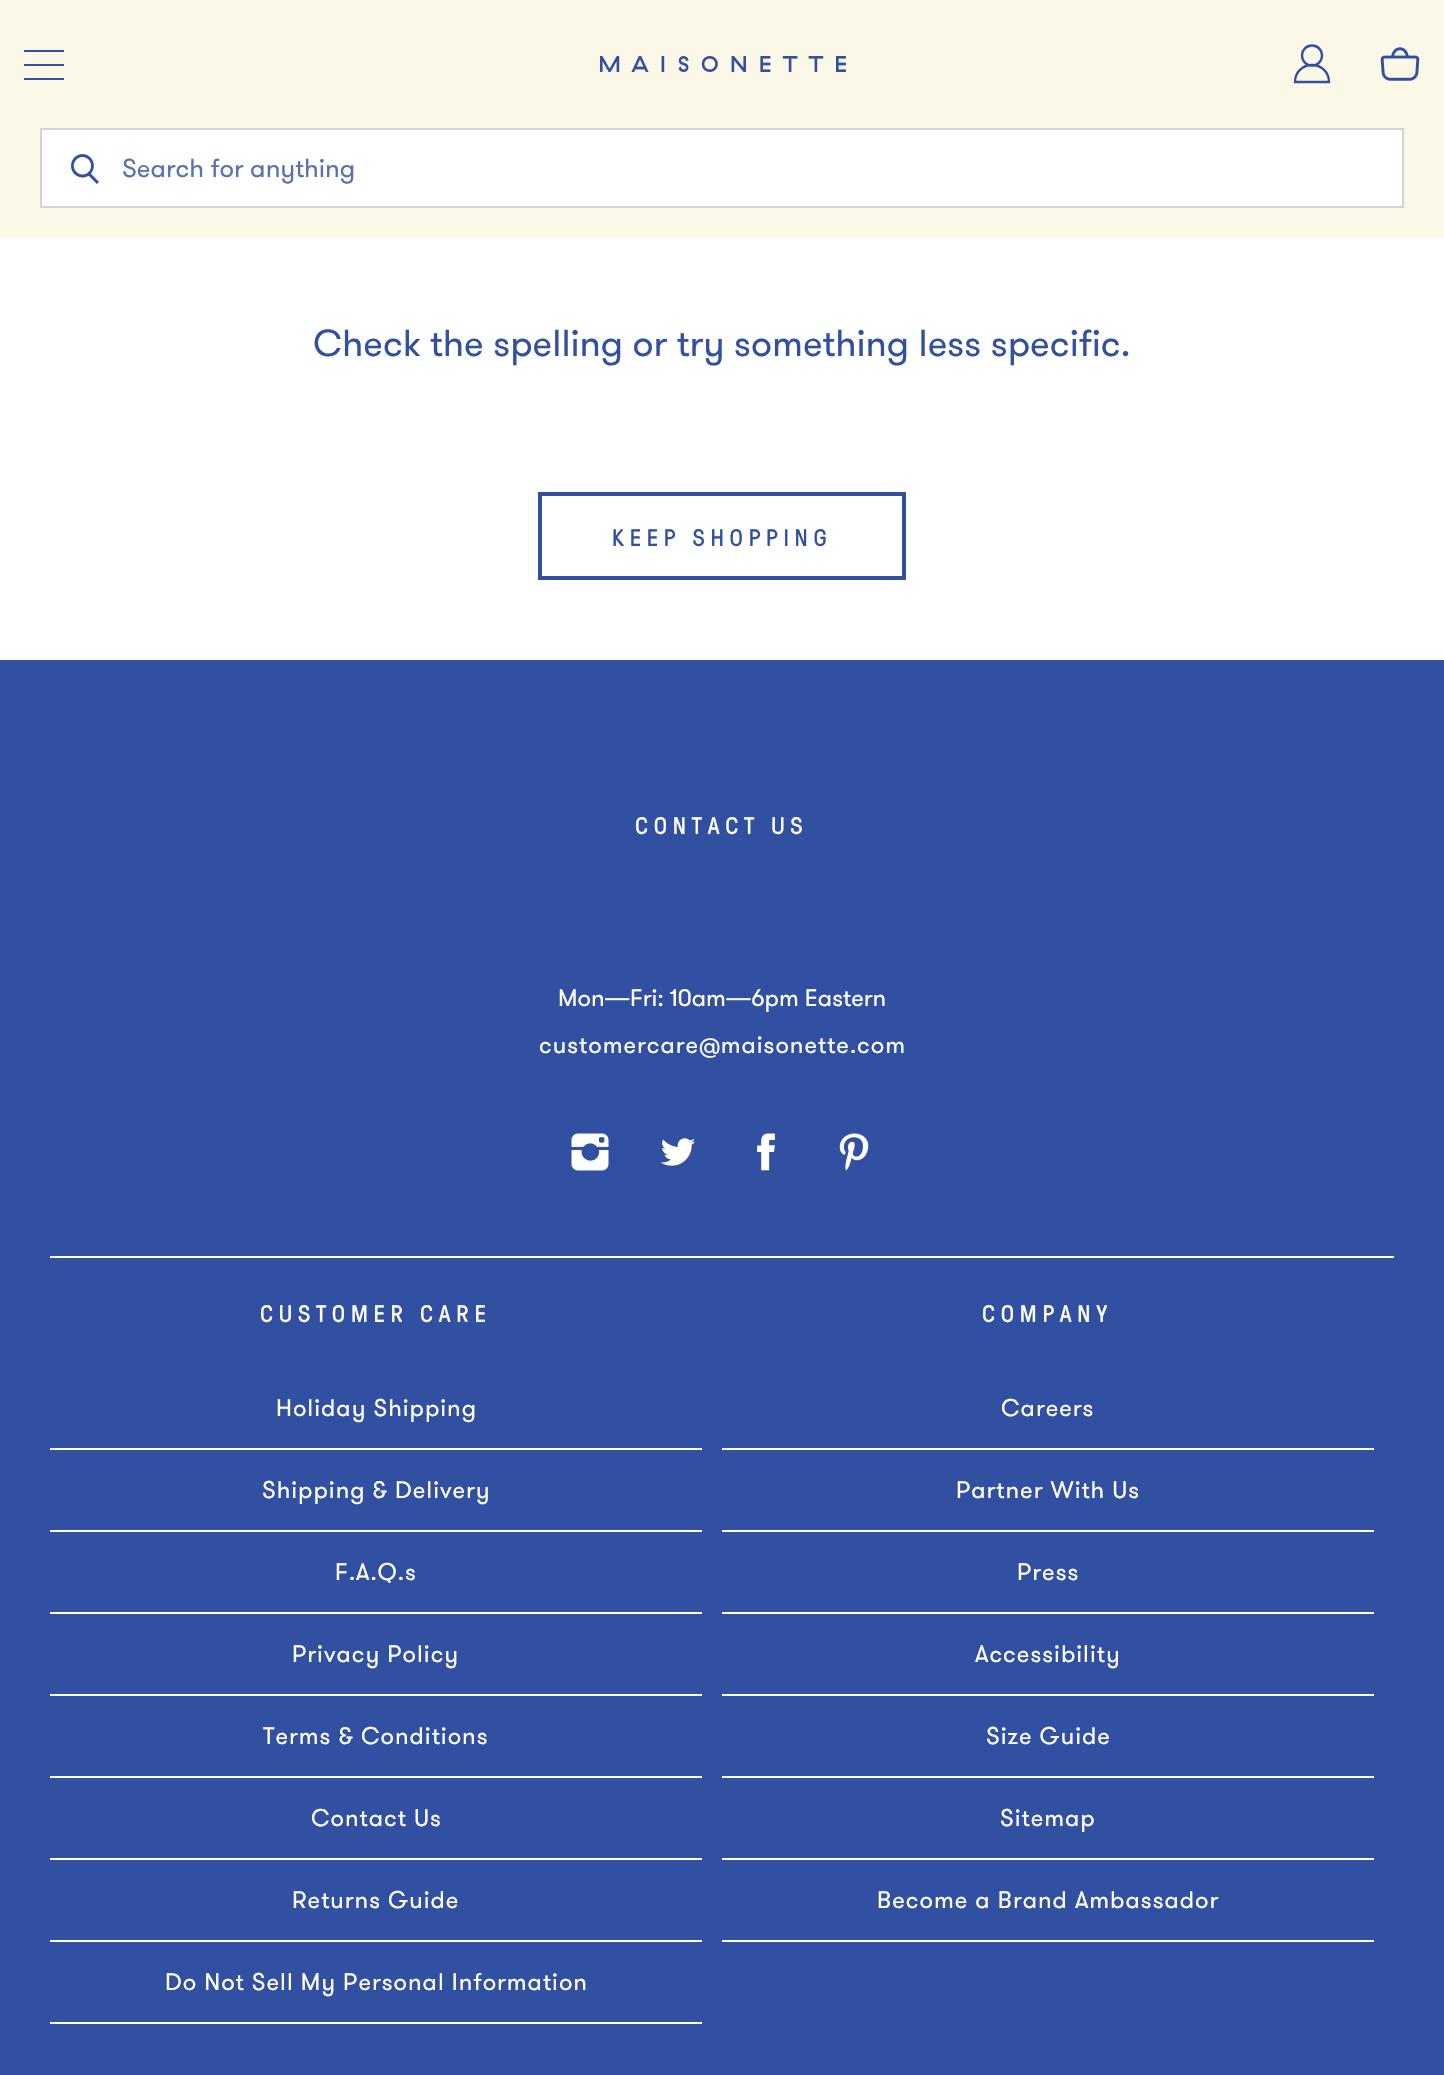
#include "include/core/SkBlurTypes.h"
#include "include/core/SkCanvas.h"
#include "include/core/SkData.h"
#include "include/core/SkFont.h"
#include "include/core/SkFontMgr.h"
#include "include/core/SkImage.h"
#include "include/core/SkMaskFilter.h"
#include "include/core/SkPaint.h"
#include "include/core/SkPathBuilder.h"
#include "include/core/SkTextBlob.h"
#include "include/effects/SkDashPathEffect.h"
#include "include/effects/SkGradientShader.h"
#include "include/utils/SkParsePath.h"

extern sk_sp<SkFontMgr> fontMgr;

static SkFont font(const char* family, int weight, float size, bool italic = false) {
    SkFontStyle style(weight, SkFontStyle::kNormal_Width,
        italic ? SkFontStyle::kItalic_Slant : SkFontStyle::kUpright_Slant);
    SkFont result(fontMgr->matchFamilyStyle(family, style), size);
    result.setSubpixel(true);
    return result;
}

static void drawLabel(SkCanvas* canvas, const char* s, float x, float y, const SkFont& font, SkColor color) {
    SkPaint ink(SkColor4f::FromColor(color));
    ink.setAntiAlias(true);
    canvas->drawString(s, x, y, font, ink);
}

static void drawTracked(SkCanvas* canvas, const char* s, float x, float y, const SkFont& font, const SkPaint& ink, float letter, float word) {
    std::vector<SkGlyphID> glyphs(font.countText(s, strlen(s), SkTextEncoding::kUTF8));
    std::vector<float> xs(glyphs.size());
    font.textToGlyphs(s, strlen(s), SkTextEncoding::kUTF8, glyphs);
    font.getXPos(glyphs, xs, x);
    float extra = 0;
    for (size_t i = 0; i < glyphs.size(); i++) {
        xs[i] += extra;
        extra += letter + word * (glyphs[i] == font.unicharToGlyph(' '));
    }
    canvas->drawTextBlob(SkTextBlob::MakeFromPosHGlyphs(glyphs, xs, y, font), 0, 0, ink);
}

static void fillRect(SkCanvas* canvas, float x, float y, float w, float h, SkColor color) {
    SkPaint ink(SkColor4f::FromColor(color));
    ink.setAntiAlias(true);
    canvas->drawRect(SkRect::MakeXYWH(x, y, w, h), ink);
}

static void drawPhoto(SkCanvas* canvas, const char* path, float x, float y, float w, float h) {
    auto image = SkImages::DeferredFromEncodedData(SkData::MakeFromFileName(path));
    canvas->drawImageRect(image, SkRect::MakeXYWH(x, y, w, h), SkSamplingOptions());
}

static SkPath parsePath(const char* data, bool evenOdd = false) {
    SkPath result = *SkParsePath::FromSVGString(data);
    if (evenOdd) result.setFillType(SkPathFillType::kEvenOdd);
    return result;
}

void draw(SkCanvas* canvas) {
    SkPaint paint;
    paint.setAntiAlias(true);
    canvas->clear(0xFFFFFFFF);
    fillRect(canvas, 0, 0, 1444, 238, 0xFFFCF8E8);
    fillRect(canvas, 24, 64, 40, 2, 0xFF3150A2);
    fillRect(canvas, 24, 50, 40, 2, 0xFF3150A2);
    fillRect(canvas, 24, 78, 40, 2, 0xFF3150A2);
    drawPhoto(canvas, "assets/img1.png", 600, 56, 246, 16);
    paint.setStroke(true);
    paint.setStrokeWidth(2.3f);
    paint.setColor(0xFF3150A2);
    canvas->drawCircle(1312, 55.5f, 10, paint);
    canvas->drawPath(parsePath("M1329 82C1329 72.5 1321.5 65 1312 65C1302.5 65 1295 72.5 1295 82Z"), paint);
    drawPhoto(canvas, "assets/img2.png", 1380, 47, 40, 34);
    paint.setStroke(false);
    paint.setColor(0xFFFFFFFF);
    canvas->drawRect(SkRect::MakeXYWH(41, 129, 1362, 78), paint);
    paint.setStroke(true);
    paint.setStrokeWidth(2);
    paint.setColor(0xFFD3D3D3);
    canvas->drawRect(SkRect::MakeXYWH(41, 129, 1362, 78), paint);
    drawPhoto(canvas, "assets/img3.png", 71, 154, 28, 30);
    SkFont font1 = font("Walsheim", 400, 26);
    drawLabel(canvas, "Search for anything", 122, 177, font1, 0xFF5971B4);
    SkFont font2 = font("Walsheim", 400, 37.5f);
    drawLabel(canvas, "Check the spelling or try something less specific.", 313, 356, font2, 0xFF3150A2);
    paint.setStrokeWidth(4);
    paint.setColor(0xFF3150A2);
    canvas->drawRect(SkRect::MakeXYWH(540, 494, 364, 84), paint);
    SkFont font3 = font("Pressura", 400, 24);
    paint.setStroke(false);
    drawTracked(canvas, "KEEP SHOPPING", 612, 546, font3, paint, 5.75f, 0);
    fillRect(canvas, 0, 660, 1444, 1415, 0xFF3150A2);
    paint.setColor(0xFFFFFFFF);
    drawTracked(canvas, "CONTACT US", 635, 834, font3, paint, 5.75f, 0);
    SkFont font4 = font("Walsheim", 400, 24);
    drawLabel(canvas, "Mon—Fri: 10am—6pm Eastern", 558, 1006, font4, 0xFFFFFFFF);
    drawTracked(canvas, "customercare@maisonette.com", 539, 1053, font4, paint, 1, 0);
    drawPhoto(canvas, "assets/img4.png", 571, 1133, 38, 38);
    drawPhoto(canvas, "assets/img5.png", 660, 1138, 36, 28);
    drawPhoto(canvas, "assets/img6.png", 757, 1133, 18, 38);
    drawPhoto(canvas, "assets/img7.png", 839, 1133, 30, 38);
    fillRect(canvas, 50, 1256, 1344, 2, 0xFFFFFFFF);
    drawTracked(canvas, "CUSTOMER CARE", 260, 1322, font3, paint, 5.75f, 0);
    fillRect(canvas, 50, 1448, 652, 2, 0xFFFFFFFF);
    drawTracked(canvas, "Holiday Shipping", 276, 1416, font4, paint, 1, 0);
    fillRect(canvas, 50, 1530, 652, 2, 0xFFFFFFFF);
    drawTracked(canvas, "Shipping & Delivery", 262, 1498, font4, paint, 1, 0);
    fillRect(canvas, 50, 1612, 652, 2, 0xFFFFFFFF);
    drawTracked(canvas, "F.A.Q.s", 335, 1580, font4, paint, 1, 0);
    fillRect(canvas, 50, 1694, 652, 2, 0xFFFFFFFF);
    drawTracked(canvas, "Privacy Policy", 292, 1662, font4, paint, 1, 0);
    fillRect(canvas, 50, 1776, 652, 2, 0xFFFFFFFF);
    drawTracked(canvas, "Terms & Conditions", 263, 1744, font4, paint, 1, 0);
    fillRect(canvas, 50, 1858, 652, 2, 0xFFFFFFFF);
    drawTracked(canvas, "Contact Us", 311, 1826, font4, paint, 1, 0);
    fillRect(canvas, 50, 1940, 652, 2, 0xFFFFFFFF);
    drawTracked(canvas, "Returns Guide", 292, 1908, font4, paint, 1, 0);
    fillRect(canvas, 50, 2022, 652, 2, 0xFFFFFFFF);
    drawTracked(canvas, "Do Not Sell My Personal Information", 165, 1990, font4, paint, 1, 0);
    drawTracked(canvas, "COMPANY", 982, 1322, font3, paint, 5.75f, 0);
    fillRect(canvas, 722, 1448, 652, 2, 0xFFFFFFFF);
    drawTracked(canvas, "Careers", 1001, 1416, font4, paint, 1, 0);
    fillRect(canvas, 722, 1530, 652, 2, 0xFFFFFFFF);
    drawTracked(canvas, "Partner With Us", 956, 1498, font4, paint, 1, 0);
    fillRect(canvas, 722, 1612, 652, 2, 0xFFFFFFFF);
    drawTracked(canvas, "Press", 1017, 1580, font4, paint, 1, 0);
    fillRect(canvas, 722, 1694, 652, 2, 0xFFFFFFFF);
    drawTracked(canvas, "Accessibility", 975, 1662, font4, paint, 1, 0);
    fillRect(canvas, 722, 1776, 652, 2, 0xFFFFFFFF);
    drawTracked(canvas, "Size Guide", 986, 1744, font4, paint, 1, 0);
    fillRect(canvas, 722, 1858, 652, 2, 0xFFFFFFFF);
    drawTracked(canvas, "Sitemap", 1000, 1826, font4, paint, 1, 0);
    fillRect(canvas, 722, 1940, 652, 2, 0xFFFFFFFF);
    drawTracked(canvas, "Become a Brand Ambassador", 877, 1908, font4, paint, 1, 0);
}
